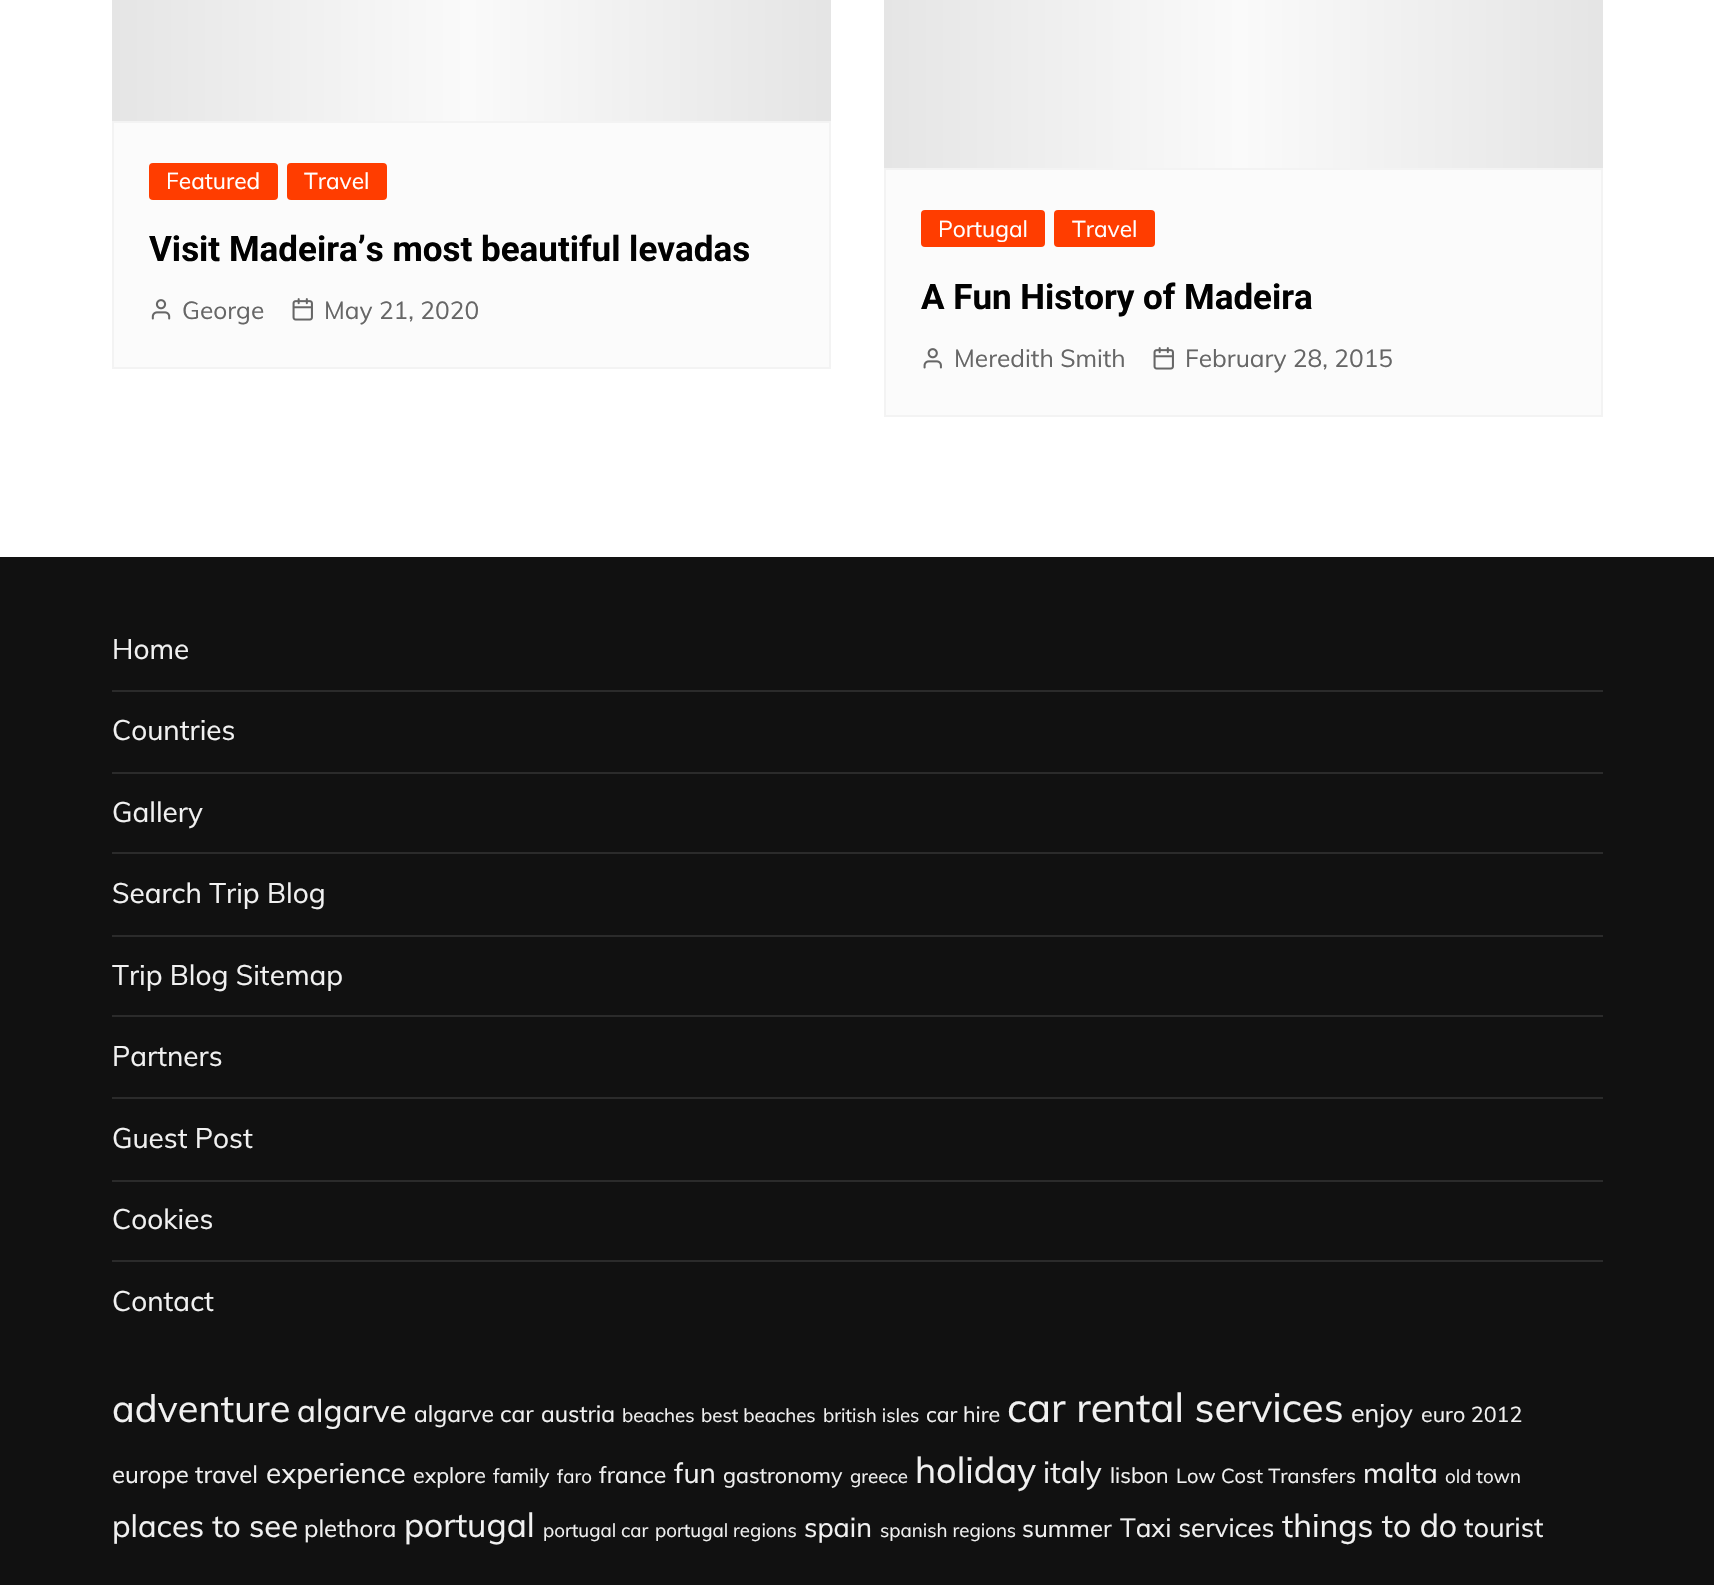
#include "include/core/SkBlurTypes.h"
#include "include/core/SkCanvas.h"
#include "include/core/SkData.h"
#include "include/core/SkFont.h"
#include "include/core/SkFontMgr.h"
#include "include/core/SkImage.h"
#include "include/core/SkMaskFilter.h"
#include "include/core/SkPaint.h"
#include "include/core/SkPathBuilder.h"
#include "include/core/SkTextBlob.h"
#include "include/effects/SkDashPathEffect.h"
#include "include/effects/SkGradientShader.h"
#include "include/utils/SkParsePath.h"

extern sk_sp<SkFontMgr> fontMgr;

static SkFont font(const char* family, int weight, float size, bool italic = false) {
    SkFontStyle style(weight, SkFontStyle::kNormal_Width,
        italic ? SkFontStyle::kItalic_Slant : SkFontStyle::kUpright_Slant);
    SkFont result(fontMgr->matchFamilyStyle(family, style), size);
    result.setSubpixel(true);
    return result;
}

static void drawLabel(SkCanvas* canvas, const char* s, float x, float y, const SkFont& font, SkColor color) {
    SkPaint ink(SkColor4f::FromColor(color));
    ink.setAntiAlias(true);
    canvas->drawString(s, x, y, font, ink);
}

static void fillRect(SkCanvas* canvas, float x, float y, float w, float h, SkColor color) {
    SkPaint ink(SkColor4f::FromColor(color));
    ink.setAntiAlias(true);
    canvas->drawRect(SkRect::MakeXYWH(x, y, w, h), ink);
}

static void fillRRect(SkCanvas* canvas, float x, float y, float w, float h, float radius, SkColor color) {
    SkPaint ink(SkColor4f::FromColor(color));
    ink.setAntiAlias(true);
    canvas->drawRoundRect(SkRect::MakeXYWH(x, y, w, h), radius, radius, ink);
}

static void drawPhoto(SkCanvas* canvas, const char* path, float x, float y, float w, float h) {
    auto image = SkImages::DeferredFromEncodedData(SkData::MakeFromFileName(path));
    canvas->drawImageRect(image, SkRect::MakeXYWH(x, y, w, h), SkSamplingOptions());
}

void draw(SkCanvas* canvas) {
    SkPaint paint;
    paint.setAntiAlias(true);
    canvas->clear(0xFFFFFFFF);
    fillRect(canvas, 824, 0, 7, 121, 0xFFE5E5E5);
    {
        const SkColor colors[] = {0xFFE5E5E5, 0xFFFAFAFA, 0xFFE5E5E5};
        const float stops[] = {0, 0.5f, 1};
        const SkPoint ends[] = {{112, -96}, {824, -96}};
        paint.setShader(SkGradientShader::MakeLinear(ends, colors, stops, 3, SkTileMode::kClamp));
        paint.setAlpha(255);
    }
    canvas->drawRect(SkRect::MakeXYWH(112, 0, 712, 121), paint);
    paint.setShader(nullptr);
    paint.setColor(0xFFFBFBFB);
    canvas->drawRect(SkRect::MakeXYWH(113, 122, 717, 246), paint);
    paint.setStroke(true);
    paint.setStrokeWidth(2);
    paint.setColor(0xFFF3F3F3);
    canvas->drawRect(SkRect::MakeXYWH(113, 122, 717, 246), paint);
    fillRRect(canvas, 149, 163, 129, 37, 4, 0xFFFF3D00);
    SkFont font1 = font("Muli", 400, 22.75f);
    drawLabel(canvas, "Featured", 166, 189, font1, 0xFFFFFFFF);
    fillRRect(canvas, 287, 163, 100, 37, 4, 0xFFFF3D00);
    drawLabel(canvas, "Travel", 304, 189, font1, 0xFFFFFFFF);
    SkFont font2 = font("Roboto", 700, 35);
    drawLabel(canvas, "Visit Madeira’s most beautiful levadas", 149, 261, font2, 0xFF010101);
    drawPhoto(canvas, "assets/img1.png", 151, 299, 20, 21);
    SkFont font3 = font("Muli", 400, 24.5f);
    drawLabel(canvas, "George", 182, 319, font3, 0xFF666666);
    drawPhoto(canvas, "assets/img2.png", 292, 298, 21, 23);
    drawLabel(canvas, "May 21, 2020", 324, 319, font3, 0xFF666666);
    fillRect(canvas, 1596, 0, 7, 168, 0xFFE5E5E5);
    paint.setStroke(false);
    {
        const SkColor colors[] = {0xFFE5E5E5, 0xFFFAFAFA, 0xFFE5E5E5};
        const float stops[] = {0, 0.5f, 1};
        const SkPoint ends[] = {{884, -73}, {1596, -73}};
        paint.setShader(SkGradientShader::MakeLinear(ends, colors, stops, 3, SkTileMode::kClamp));
        paint.setAlpha(255);
    }
    canvas->drawRect(SkRect::MakeXYWH(884, 0, 712, 168), paint);
    paint.setShader(nullptr);
    paint.setColor(0xFFFBFBFB);
    canvas->drawRect(SkRect::MakeXYWH(885, 169, 717, 247), paint);
    paint.setStroke(true);
    paint.setColor(0xFFF3F3F3);
    canvas->drawRect(SkRect::MakeXYWH(885, 169, 717, 247), paint);
    fillRRect(canvas, 921, 210, 124, 37, 4, 0xFFFF3D00);
    drawLabel(canvas, "Portugal", 938, 237, font1, 0xFFFFFFFF);
    fillRRect(canvas, 1054, 210, 101, 37, 4, 0xFFFF3D00);
    drawLabel(canvas, "Travel", 1072, 237, font1, 0xFFFFFFFF);
    drawLabel(canvas, "A Fun History of Madeira", 921, 309, font2, 0xFF010101);
    drawPhoto(canvas, "assets/img3.png", 923, 348, 19, 21);
    drawLabel(canvas, "Meredith Smith", 954, 367, font3, 0xFF666666);
    drawPhoto(canvas, "assets/img2.png", 1153, 347, 21, 23);
    drawLabel(canvas, "February 28, 2015", 1185, 367, font3, 0xFF666666);
    fillRect(canvas, 0, 557, 1714, 1028, 0xFF111111);
    fillRect(canvas, 112, 690, 1491, 2, 0xFF2B2B2B);
    SkFont font4 = font("Muli", 400, 28);
    drawLabel(canvas, "Home", 112, 659, font4, 0xFFF1F1F1);
    fillRect(canvas, 112, 772, 1491, 2, 0xFF2B2B2B);
    drawLabel(canvas, "Countries", 112, 740, font4, 0xFFF1F1F1);
    fillRect(canvas, 112, 852, 1491, 2, 0xFF2B2B2B);
    drawLabel(canvas, "Gallery", 112, 822, font4, 0xFFF1F1F1);
    fillRect(canvas, 112, 935, 1491, 2, 0xFF2B2B2B);
    drawLabel(canvas, "Search Trip Blog", 112, 903, font4, 0xFFF1F1F1);
    fillRect(canvas, 112, 1015, 1491, 2, 0xFF2B2B2B);
    drawLabel(canvas, "Trip Blog Sitemap", 112, 985, font4, 0xFFF1F1F1);
    fillRect(canvas, 112, 1097, 1491, 2, 0xFF2B2B2B);
    drawLabel(canvas, "Partners", 112, 1066, font4, 0xFFF1F1F1);
    fillRect(canvas, 112, 1180, 1491, 2, 0xFF2B2B2B);
    drawLabel(canvas, "Guest Post", 112, 1148, font4, 0xFFF1F1F1);
    fillRect(canvas, 112, 1260, 1491, 2, 0xFF2B2B2B);
    drawLabel(canvas, "Cookies", 112, 1229, font4, 0xFFF1F1F1);
    drawLabel(canvas, "Contact", 112, 1311, font4, 0xFFF1F1F1);
    SkFont font5 = font("Muli", 400, 38);
    drawLabel(canvas, "adventure", 112, 1422, font5, 0xFFF1F1F1);
    SkFont font6 = font("Muli", 400, 31.5f);
    drawLabel(canvas, "algarve", 297, 1422, font6, 0xFFF1F1F1);
    SkFont font7 = font("Muli", 400, 23);
    drawLabel(canvas, "algarve car", 414, 1422, font7, 0xFFF1F1F1);
    drawLabel(canvas, "austria", 541, 1422, font7, 0xFFF1F1F1);
    SkFont font8 = font("Muli", 400, 18.75f);
    drawLabel(canvas, "beaches", 622, 1422, font8, 0xFFF1F1F1);
    drawLabel(canvas, "best beaches", 701, 1422, font8, 0xFFF1F1F1);
    drawLabel(canvas, "british isles", 823, 1422, font8, 0xFFF1F1F1);
    SkFont font9 = font("Muli", 400, 21.5f);
    drawLabel(canvas, "car hire", 926, 1422, font9, 0xFFF1F1F1);
    SkFont font10 = font("Muli", 400, 40.25f);
    drawLabel(canvas, "car rental services", 1007, 1422, font10, 0xFFF1F1F1);
    SkFont font11 = font("Muli", 400, 25);
    drawLabel(canvas, "enjoy", 1351, 1422, font11, 0xFFF1F1F1);
    drawLabel(canvas, "euro 2012", 1421, 1422, font9, 0xFFF1F1F1);
    SkFont font12 = font("Muli", 400, 24);
    drawLabel(canvas, "europe travel", 112, 1483, font12, 0xFFF1F1F1);
    drawLabel(canvas, "experience", 266, 1483, font4, 0xFFF1F1F1);
    drawLabel(canvas, "explore", 413, 1483, font9, 0xFFF1F1F1);
    SkFont font13 = font("Muli", 400, 20);
    drawLabel(canvas, "family", 493, 1483, font13, 0xFFF1F1F1);
    drawLabel(canvas, "faro", 557, 1483, font8, 0xFFF1F1F1);
    drawLabel(canvas, "france", 599, 1483, font7, 0xFFF1F1F1);
    drawLabel(canvas, "fun", 674, 1483, font4, 0xFFF1F1F1);
    drawLabel(canvas, "gastronomy", 723, 1483, font9, 0xFFF1F1F1);
    drawLabel(canvas, "greece", 850, 1483, font8, 0xFFF1F1F1);
    SkFont font14 = font("Muli", 400, 36);
    drawLabel(canvas, "holiday", 915, 1483, font14, 0xFFF1F1F1);
    SkFont font15 = font("Muli", 400, 30);
    drawLabel(canvas, "italy", 1043, 1483, font15, 0xFFF1F1F1);
    drawLabel(canvas, "lisbon", 1110, 1483, font9, 0xFFF1F1F1);
    drawLabel(canvas, "Low Cost Transfers", 1176, 1483, font13, 0xFFF1F1F1);
    drawLabel(canvas, "malta", 1363, 1483, font4, 0xFFF1F1F1);
    drawLabel(canvas, "old town", 1445, 1483, font8, 0xFFF1F1F1);
    SkFont font16 = font("Muli", 400, 31);
    drawLabel(canvas, "places to see", 112, 1537, font16, 0xFFF1F1F1);
    drawLabel(canvas, "plethora", 304, 1537, font12, 0xFFF1F1F1);
    SkFont font17 = font("Muli", 400, 33.5f);
    drawLabel(canvas, "portugal", 404, 1537, font17, 0xFFF1F1F1);
    drawLabel(canvas, "portugal car", 543, 1537, font8, 0xFFF1F1F1);
    drawLabel(canvas, "portugal regions", 655, 1537, font8, 0xFFF1F1F1);
    SkFont font18 = font("Muli", 400, 27);
    drawLabel(canvas, "spain", 804, 1537, font18, 0xFFF1F1F1);
    drawLabel(canvas, "spanish regions", 880, 1537, font8, 0xFFF1F1F1);
    drawLabel(canvas, "summer", 1022, 1537, font12, 0xFFF1F1F1);
    SkFont font19 = font("Muli", 400, 26);
    drawLabel(canvas, "Taxi services", 1120, 1537, font19, 0xFFF1F1F1);
    SkFont font20 = font("Muli", 400, 32);
    drawLabel(canvas, "things to do", 1282, 1537, font20, 0xFFF1F1F1);
    drawLabel(canvas, "tourist", 1464, 1537, font18, 0xFFF1F1F1);
}
